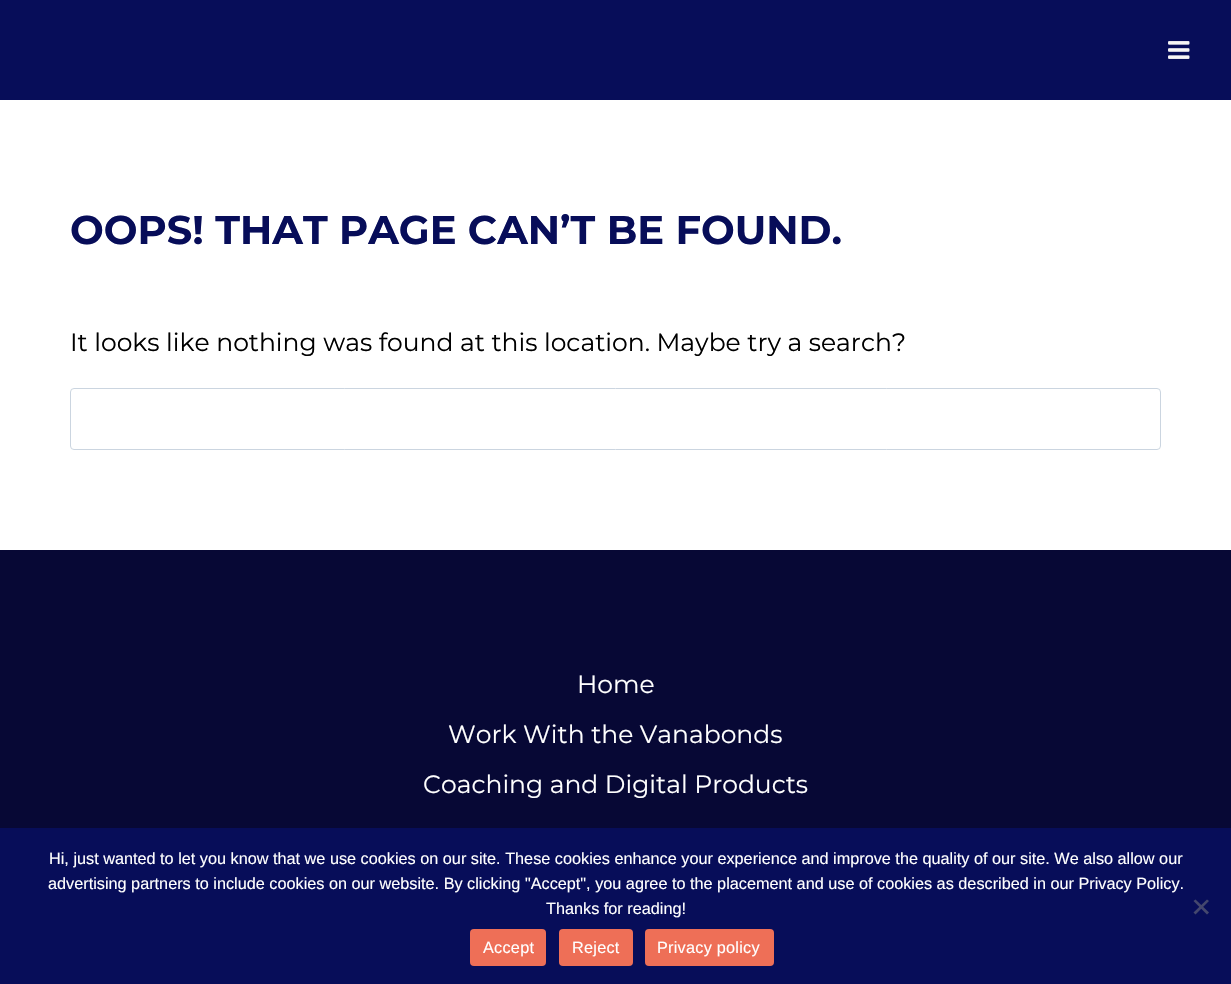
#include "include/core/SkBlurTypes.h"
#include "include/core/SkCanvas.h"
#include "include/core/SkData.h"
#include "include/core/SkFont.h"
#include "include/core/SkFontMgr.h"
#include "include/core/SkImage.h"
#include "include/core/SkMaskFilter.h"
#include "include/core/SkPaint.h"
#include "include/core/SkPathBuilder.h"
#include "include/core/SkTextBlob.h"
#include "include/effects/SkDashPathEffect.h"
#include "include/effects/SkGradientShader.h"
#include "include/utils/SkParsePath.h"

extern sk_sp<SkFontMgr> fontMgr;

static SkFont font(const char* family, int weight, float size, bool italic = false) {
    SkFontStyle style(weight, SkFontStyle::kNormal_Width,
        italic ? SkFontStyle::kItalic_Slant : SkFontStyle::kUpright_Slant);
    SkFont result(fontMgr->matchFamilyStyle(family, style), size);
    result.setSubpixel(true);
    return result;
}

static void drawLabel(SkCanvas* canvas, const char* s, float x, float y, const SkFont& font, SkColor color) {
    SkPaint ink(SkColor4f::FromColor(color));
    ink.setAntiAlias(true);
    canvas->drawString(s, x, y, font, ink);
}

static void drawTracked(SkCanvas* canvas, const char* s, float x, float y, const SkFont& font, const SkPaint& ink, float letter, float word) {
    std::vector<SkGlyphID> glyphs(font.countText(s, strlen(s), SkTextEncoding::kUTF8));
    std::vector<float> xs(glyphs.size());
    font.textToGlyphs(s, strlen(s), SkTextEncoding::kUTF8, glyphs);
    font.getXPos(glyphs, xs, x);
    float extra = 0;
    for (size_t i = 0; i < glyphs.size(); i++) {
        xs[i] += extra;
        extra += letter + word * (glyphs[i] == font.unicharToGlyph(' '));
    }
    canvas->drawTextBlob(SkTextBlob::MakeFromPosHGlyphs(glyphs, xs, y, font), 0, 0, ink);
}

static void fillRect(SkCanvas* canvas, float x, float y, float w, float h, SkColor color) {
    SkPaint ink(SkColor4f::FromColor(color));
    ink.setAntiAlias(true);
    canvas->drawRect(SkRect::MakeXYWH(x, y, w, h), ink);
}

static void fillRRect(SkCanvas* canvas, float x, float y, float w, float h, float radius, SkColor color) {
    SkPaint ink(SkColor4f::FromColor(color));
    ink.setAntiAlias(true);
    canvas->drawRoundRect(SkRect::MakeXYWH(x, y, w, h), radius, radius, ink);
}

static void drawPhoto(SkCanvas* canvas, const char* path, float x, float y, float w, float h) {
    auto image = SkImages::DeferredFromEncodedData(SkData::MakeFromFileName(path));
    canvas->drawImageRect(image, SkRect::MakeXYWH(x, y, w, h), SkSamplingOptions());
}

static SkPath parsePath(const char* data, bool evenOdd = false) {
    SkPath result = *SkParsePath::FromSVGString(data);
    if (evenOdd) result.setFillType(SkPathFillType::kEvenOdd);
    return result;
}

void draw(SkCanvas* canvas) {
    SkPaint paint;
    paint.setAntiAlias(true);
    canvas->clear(0xFFFFFFFF);
    fillRect(canvas, 0, 0, 1231, 100, 0xFF070D59);
    drawPhoto(canvas, "assets/img1.png", 1168, 41, 22, 18);
    SkFont font1 = font("Montserrat", 700, 40);
    drawLabel(canvas, "OOPS! THAT PAGE CAN’T BE FOUND.", 70, 244, font1, 0xFF070D59);
    SkFont font2 = font("Montserrat", 400, 25);
    drawLabel(canvas, "It looks like nothing was found at this location. Maybe try a search?", 70, 351, font2, 0xFF000000);
    paint.setStroke(true);
    paint.setStrokeWidth(1);
    paint.setColor(0xFFCBD5E0);
    canvas->drawRoundRect(SkRect::MakeXYWH(70.5f, 388.5f, 1090, 61), 3.5f, 3.5f, paint);
    fillRect(canvas, 0, 550, 1231, 278, 0xFF070835);
    drawLabel(canvas, "Home", 577, 693, font2, 0xFFFFFFFF);
    drawLabel(canvas, "Work With the Vanabonds", 448, 743, font2, 0xFFFFFFFF);
    drawLabel(canvas, "Coaching and Digital Products", 423, 793, font2, 0xFFFFFFFF);
    fillRect(canvas, 0, 828, 1231, 156, 0xFF070D59);
    SkFont font3 = font("Liberation Sans", 400, 16.25f);
    drawLabel(canvas, "Hi, just wanted to let you know that we use cookies on our site. These cookies enhance your experience and improve the quality of our site. We also allow our", 49, 864, font3, 0xFFFFFFFF);
    drawLabel(canvas, "advertising partners to include cookies on our website. By clicking \"Accept\", you agree to the placement and use of cookies as described in our Privacy Policy.", 48, 889, font3, 0xFFFFFFFF);
    drawLabel(canvas, "Thanks for reading!", 546, 914, font3, 0xFFFFFFFF);
    paint.setStroke(false);
    paint.setColor(0xFF44476D);
    canvas->drawPath(parsePath("M1207 899.5L1209 901L1195.5 914.5L1193.5 912.5Z"), paint);
    canvas->drawPath(parsePath("M1193.5 901L1195.5 899.5L1209 912.5L1207 914.5Z"), paint);
    fillRRect(canvas, 470, 929, 76, 37, 4, 0xFFEE6F57);
    paint.setColor(0xFFFFFFFF);
    drawTracked(canvas, "Accept", 483, 953, font3, paint, 0.25f, 0);
    fillRRect(canvas, 559, 929, 74, 37, 4, 0xFFEE6F57);
    drawTracked(canvas, "Reject", 572, 953, font3, paint, 0.25f, 0);
    fillRRect(canvas, 645, 929, 129, 37, 4, 0xFFEE6F57);
    drawTracked(canvas, "Privacy policy", 657, 953, font3, paint, 0.25f, 0);
}
